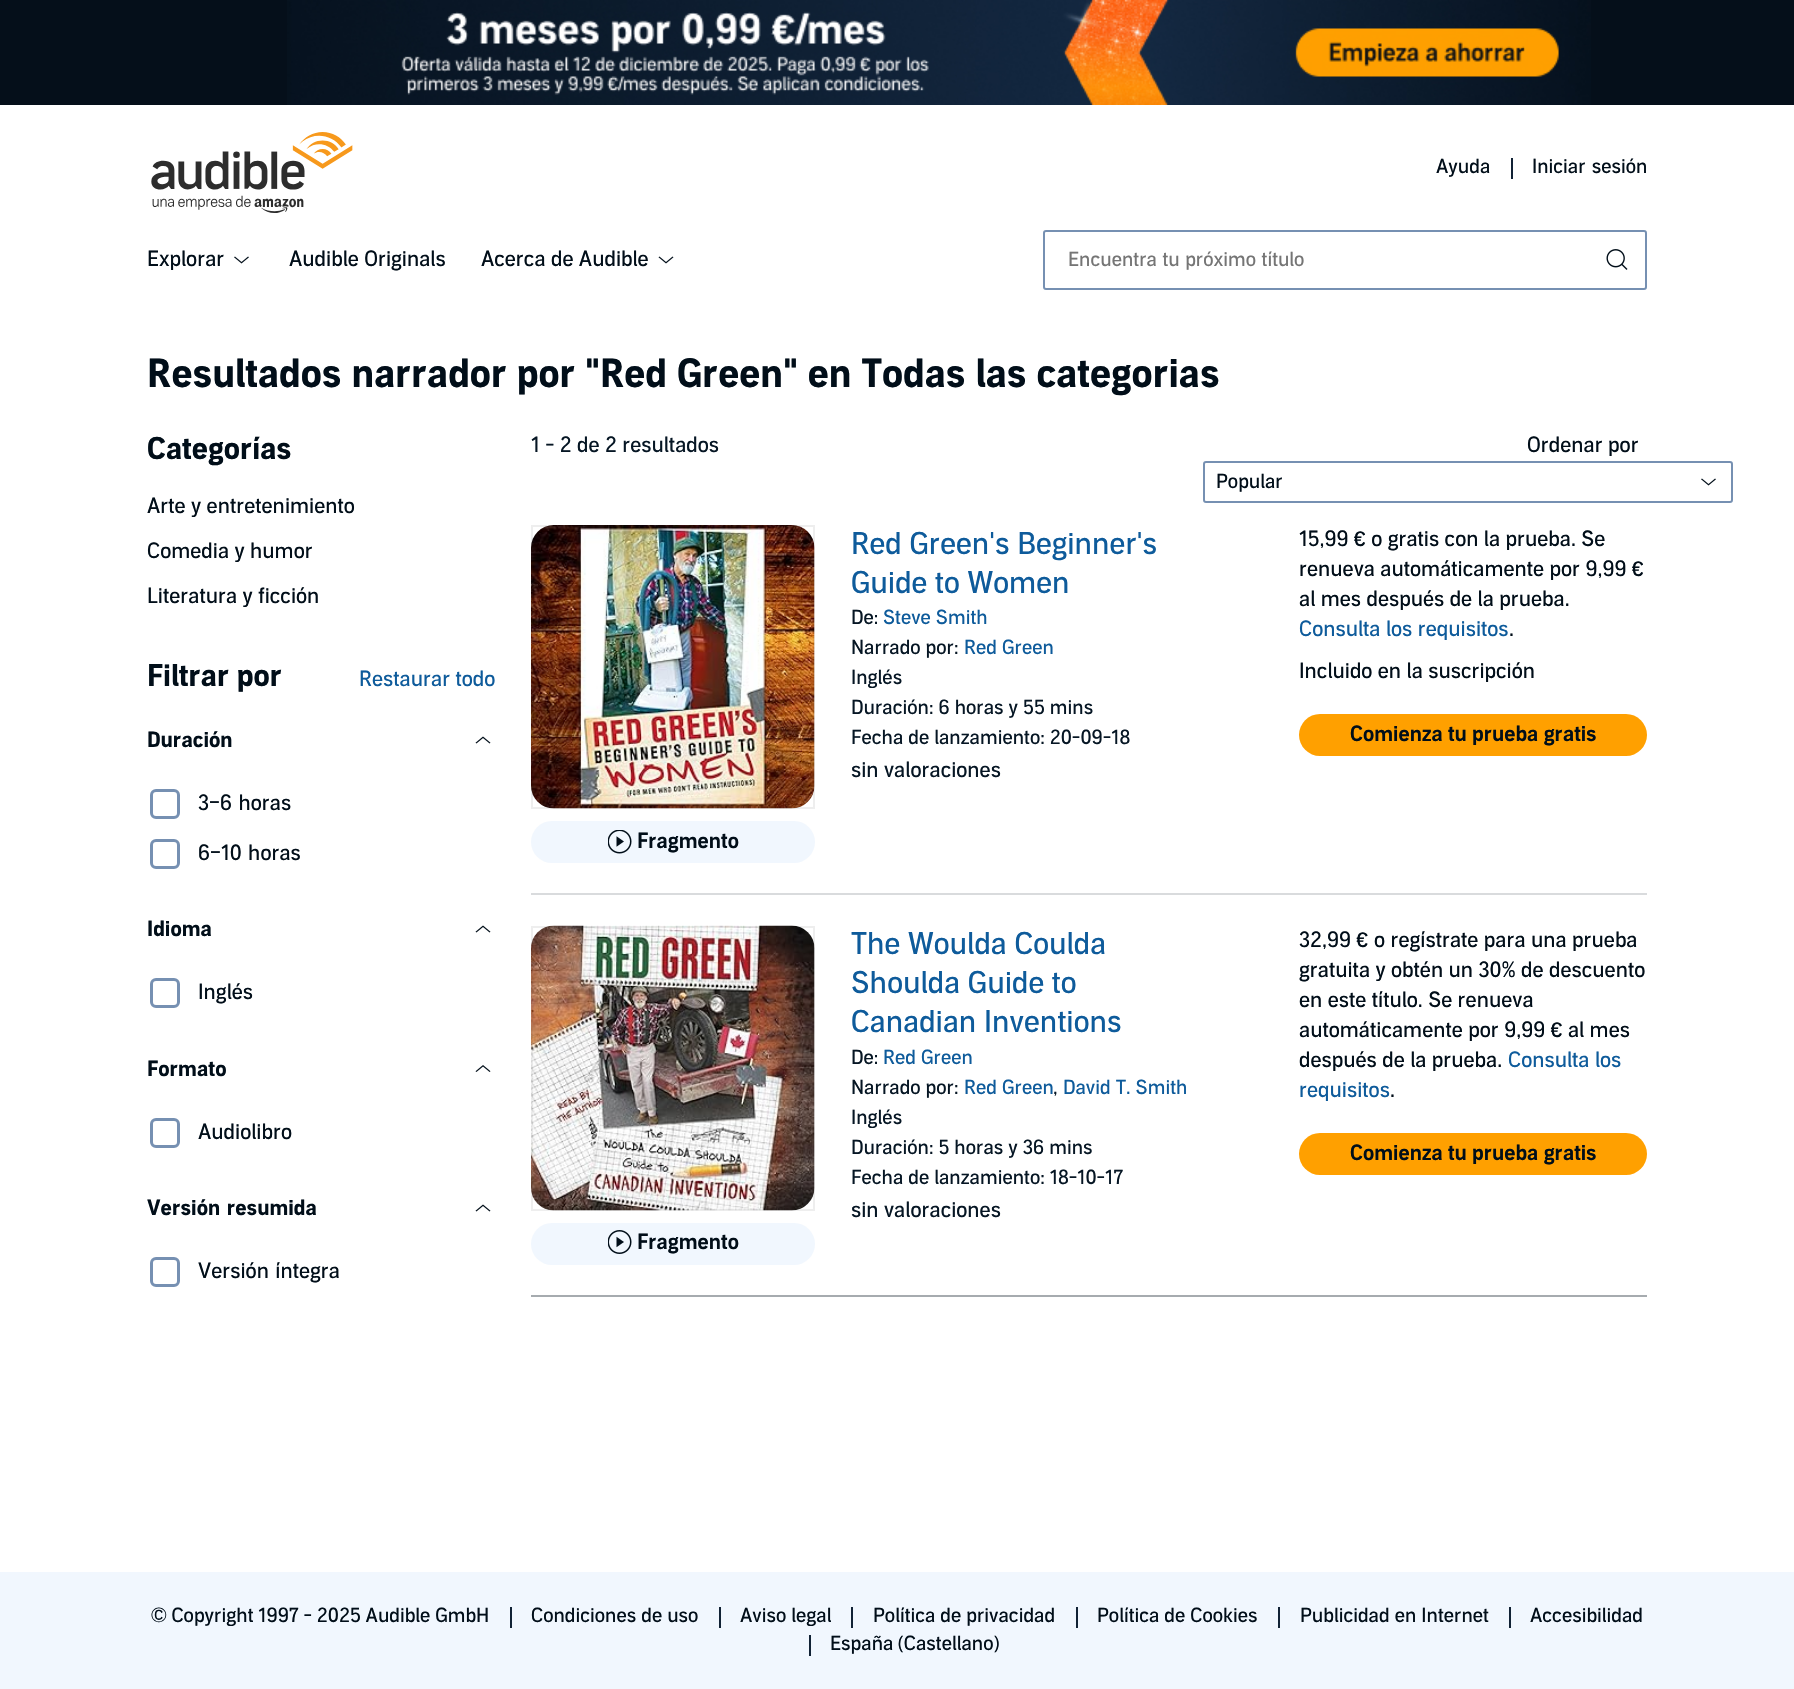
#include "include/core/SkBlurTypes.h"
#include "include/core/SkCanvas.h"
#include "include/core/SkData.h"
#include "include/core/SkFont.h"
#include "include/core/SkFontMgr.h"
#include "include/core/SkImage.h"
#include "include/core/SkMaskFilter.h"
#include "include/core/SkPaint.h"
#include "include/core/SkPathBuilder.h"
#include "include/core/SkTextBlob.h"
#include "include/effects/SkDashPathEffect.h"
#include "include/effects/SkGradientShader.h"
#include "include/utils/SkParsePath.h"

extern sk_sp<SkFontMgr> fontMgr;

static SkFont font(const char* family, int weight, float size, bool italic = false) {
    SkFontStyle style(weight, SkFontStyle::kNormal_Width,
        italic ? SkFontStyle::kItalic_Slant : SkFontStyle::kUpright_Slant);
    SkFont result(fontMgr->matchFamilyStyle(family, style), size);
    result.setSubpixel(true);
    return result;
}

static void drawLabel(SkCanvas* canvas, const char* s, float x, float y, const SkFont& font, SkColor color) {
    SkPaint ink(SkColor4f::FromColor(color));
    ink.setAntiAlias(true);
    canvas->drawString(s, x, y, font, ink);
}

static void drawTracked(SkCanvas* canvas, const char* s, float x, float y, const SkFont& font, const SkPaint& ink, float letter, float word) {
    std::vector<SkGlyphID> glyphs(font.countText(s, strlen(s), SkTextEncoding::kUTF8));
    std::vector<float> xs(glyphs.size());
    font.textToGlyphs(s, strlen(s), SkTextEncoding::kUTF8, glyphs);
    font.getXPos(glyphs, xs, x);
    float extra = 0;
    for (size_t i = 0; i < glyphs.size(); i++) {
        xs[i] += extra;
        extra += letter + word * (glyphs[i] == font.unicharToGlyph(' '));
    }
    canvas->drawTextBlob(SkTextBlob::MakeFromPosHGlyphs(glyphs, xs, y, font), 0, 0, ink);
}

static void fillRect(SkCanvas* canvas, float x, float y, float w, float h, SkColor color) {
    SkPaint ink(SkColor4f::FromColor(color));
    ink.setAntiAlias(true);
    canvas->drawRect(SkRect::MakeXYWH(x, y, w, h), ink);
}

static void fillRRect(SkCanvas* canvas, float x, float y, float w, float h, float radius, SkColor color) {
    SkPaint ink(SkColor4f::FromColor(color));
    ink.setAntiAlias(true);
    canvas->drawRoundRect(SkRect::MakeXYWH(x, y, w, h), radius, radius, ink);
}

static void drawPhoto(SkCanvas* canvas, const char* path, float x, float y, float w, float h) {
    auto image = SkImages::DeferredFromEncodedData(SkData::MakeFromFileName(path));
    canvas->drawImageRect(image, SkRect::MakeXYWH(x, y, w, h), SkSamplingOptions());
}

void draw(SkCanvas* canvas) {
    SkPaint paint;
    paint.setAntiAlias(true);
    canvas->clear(0xFFFFFFFF);
    fillRect(canvas, 0, 0, 1794, 105, 0xFF050F1A);
    drawPhoto(canvas, "assets/img1.png", 287, 0, 1304, 105);
    drawPhoto(canvas, "assets/img2.png", 151, 132, 202, 81);
    SkFont font1 = font("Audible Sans", 400, 19.5f);
    drawLabel(canvas, "Ayuda", 1436, 173, font1, 0xFF010E19);
    fillRect(canvas, 1511, 158, 2, 21, 0xFF112235);
    paint.setColor(0xFF010E19);
    drawTracked(canvas, "Iniciar sesión", 1532, 173, font1, paint, 0, 1);
    SkFont font2 = font("Audible Sans", 400, 21);
    drawLabel(canvas, "Explorar", 147, 266, font2, 0xFF010E19);
    drawPhoto(canvas, "assets/img3.png", 234, 256, 15, 8);
    drawLabel(canvas, "Audible Originals", 289, 266, font2, 0xFF010E19);
    drawLabel(canvas, "Acerca de Audible", 481, 266, font2, 0xFF010E19);
    drawPhoto(canvas, "assets/img4.png", 658, 256, 16, 8);
    paint.setStroke(true);
    paint.setStrokeWidth(2);
    paint.setColor(0xFF7690B2);
    canvas->drawRoundRect(SkRect::MakeXYWH(1044, 231, 602, 58), 2, 2, paint);
    paint.setStroke(false);
    paint.setColor(0xFF757575);
    drawTracked(canvas, "Encuentra tu próximo título", 1068, 266, font1, paint, 0, 0.5f);
    drawPhoto(canvas, "assets/img5.png", 1606, 249, 22, 21);
    SkFont font3 = font("Audible Sans", 700, 39);
    drawLabel(canvas, "Resultados narrador por \"Red Green\" en Todas las categorias", 147, 387, font3, 0xFF010E19);
    SkFont font4 = font("Audible Sans", 700, 30);
    drawLabel(canvas, "Categorías", 147, 459, font4, 0xFF010E19);
    drawLabel(canvas, "Arte y entretenimiento", 147, 513, font2, 0xFF010E19);
    drawLabel(canvas, "Comedia y humor", 147, 558, font2, 0xFF010E19);
    drawLabel(canvas, "Literatura y ficción", 147, 603, font2, 0xFF010E19);
    drawLabel(canvas, "Filtrar por", 147, 686, font4, 0xFF010E19);
    drawLabel(canvas, "Restaurar todo", 359, 686, font2, 0xFF0E5B9B);
    SkFont font5 = font("Audible Sans", 700, 21);
    drawLabel(canvas, "Duración", 147, 747, font5, 0xFF010E19);
    drawPhoto(canvas, "assets/img6.png", 475, 736, 16, 8);
    paint.setStroke(true);
    paint.setStrokeWidth(3);
    paint.setColor(0xFF7690B2);
    canvas->drawRoundRect(SkRect::MakeXYWH(151.5f, 790.5f, 27, 27), 4.5f, 4.5f, paint);
    paint.setStroke(false);
    paint.setColor(0xFF010E19);
    drawTracked(canvas, "3–6 horas", 198, 810, font2, paint, 0, 1);
    paint.setStroke(true);
    paint.setColor(0xFF7690B2);
    canvas->drawRoundRect(SkRect::MakeXYWH(151.5f, 840.5f, 27, 27), 4.5f, 4.5f, paint);
    paint.setStroke(false);
    paint.setColor(0xFF010E19);
    drawTracked(canvas, "6–10 horas", 198, 860, font2, paint, 0, 1);
    drawLabel(canvas, "Idioma", 147, 936, font5, 0xFF010E19);
    drawPhoto(canvas, "assets/img6.png", 475, 925, 16, 8);
    paint.setStroke(true);
    paint.setColor(0xFF7690B2);
    canvas->drawRoundRect(SkRect::MakeXYWH(151.5f, 979.5f, 27, 27), 4.5f, 4.5f, paint);
    drawLabel(canvas, "Inglés", 198, 999, font2, 0xFF010E19);
    drawLabel(canvas, "Formato", 147, 1076, font5, 0xFF010E19);
    drawPhoto(canvas, "assets/img7.png", 475, 1065, 16, 7);
    canvas->drawRoundRect(SkRect::MakeXYWH(151.5f, 1119.5f, 27, 27), 4.5f, 4.5f, paint);
    drawLabel(canvas, "Audiolibro", 198, 1139, font2, 0xFF010E19);
    paint.setStroke(false);
    paint.setColor(0xFF010E19);
    drawTracked(canvas, "Versión resumida", 147, 1215, font5, paint, 0, 1);
    drawPhoto(canvas, "assets/img6.png", 475, 1204, 16, 8);
    paint.setStroke(true);
    paint.setColor(0xFF7690B2);
    canvas->drawRoundRect(SkRect::MakeXYWH(151.5f, 1258.5f, 27, 27), 4.5f, 4.5f, paint);
    paint.setStroke(false);
    paint.setColor(0xFF010E19);
    drawTracked(canvas, "Versión íntegra", 198, 1278, font2, paint, 0, 1);
    drawLabel(canvas, "1 - 2 de 2 resultados", 531, 452, font2, 0xFF061624);
    drawLabel(canvas, "Ordenar por", 1527, 452, font2, 0xFF010E19);
    paint.setStroke(true);
    paint.setStrokeWidth(2);
    paint.setColor(0xFF7690B2);
    canvas->drawRoundRect(SkRect::MakeXYWH(1204, 462, 528, 40), 2, 2, paint);
    drawLabel(canvas, "Popular", 1216, 488, font1, 0xFF010E19);
    drawPhoto(canvas, "assets/img3.png", 1701, 478, 15, 8);
    SkFont font6 = font("Audible Sans", 400, 30);
    drawLabel(canvas, "Red Green's Beginner's", 851, 554, font6, 0xFF0E5B9B);
    drawLabel(canvas, "Guide to Women", 851, 593, font6, 0xFF0E5B9B);
    drawLabel(canvas, "De:", 851, 624, font1, 0xFF061624);
    drawLabel(canvas, "Steve Smith", 883, 624, font1, 0xFF0E5B9B);
    drawLabel(canvas, "Narrado por:", 851, 654, font1, 0xFF061624);
    drawLabel(canvas, "Red Green", 964, 654, font1, 0xFF0E5B9B);
    drawLabel(canvas, "Inglés", 851, 684, font1, 0xFF061624);
    drawLabel(canvas, "Duración: 6 horas y 55 mins", 851, 714, font1, 0xFF061624);
    drawLabel(canvas, "Fecha de lanzamiento: 20-09-18", 851, 744, font1, 0xFF061624);
    drawLabel(canvas, "sin valoraciones", 851, 777, font2, 0xFF061624);
    drawPhoto(canvas, "assets/img8.png", 531, 525, 284, 284);
    paint.setColor(0x14212325);
    canvas->drawRect(SkRect::MakeXYWH(532, 526, 282, 282), paint);
    fillRRect(canvas, 531, 821, 284, 42, 21, 0xFFF1F7FE);
    drawPhoto(canvas, "assets/img9.png", 608, 830, 24, 24);
    SkFont font7 = font("Audible Sans", 600, 21);
    drawLabel(canvas, "Fragmento", 637, 848, font7, 0xFF010E19);
    drawLabel(canvas, "15,99 € o gratis con la prueba. Se", 1299, 546, font2, 0xFF010E19);
    drawLabel(canvas, "renueva automáticamente por 9,99 €", 1299, 576, font2, 0xFF010E19);
    drawLabel(canvas, "al mes después de la prueba.", 1299, 606, font2, 0xFF010E19);
    drawLabel(canvas, "Consulta los requisitos", 1299, 636, font2, 0xFF0E5B9B);
    drawLabel(canvas, ".", 1509, 636, font2, 0xFF010E19);
    drawLabel(canvas, "Incluido en la suscripción", 1299, 678, font2, 0xFF010E19);
    fillRRect(canvas, 1299, 714, 348, 42, 21, 0xFFFFA000);
    drawLabel(canvas, "Comienza tu prueba gratis", 1350, 741, font7, 0xFF010E19);
    fillRect(canvas, 531, 893, 1116, 2, 0xFFD9DBDD);
    drawLabel(canvas, "The Woulda Coulda", 851, 954, font6, 0xFF0E5B9B);
    drawLabel(canvas, "Shoulda Guide to", 851, 993, font6, 0xFF0E5B9B);
    drawLabel(canvas, "Canadian Inventions", 851, 1032, font6, 0xFF0E5B9B);
    drawLabel(canvas, "De:", 851, 1064, font1, 0xFF061624);
    drawLabel(canvas, "Red Green", 883, 1064, font1, 0xFF0E5B9B);
    drawLabel(canvas, "Narrado por:", 851, 1094, font1, 0xFF061624);
    drawLabel(canvas, "Red Green", 964, 1094, font1, 0xFF0E5B9B);
    drawLabel(canvas, ",", 1053, 1094, font1, 0xFF061624);
    drawLabel(canvas, "David T. Smith", 1063, 1094, font1, 0xFF0E5B9B);
    drawLabel(canvas, "Inglés", 851, 1124, font1, 0xFF061624);
    drawLabel(canvas, "Duración: 5 horas y 36 mins", 851, 1154, font1, 0xFF061624);
    drawLabel(canvas, "Fecha de lanzamiento: 18-10-17", 851, 1184, font1, 0xFF061624);
    drawLabel(canvas, "sin valoraciones", 851, 1217, font2, 0xFF061624);
    drawPhoto(canvas, "assets/img10.png", 531, 925, 284, 286);
    canvas->drawRect(SkRect::MakeXYWH(532, 927, 282, 283), paint);
    fillRRect(canvas, 531, 1223, 284, 42, 21, 0xFFF1F7FE);
    drawPhoto(canvas, "assets/img11.png", 608, 1230, 24, 24);
    drawLabel(canvas, "Fragmento", 637, 1249, font7, 0xFF010E19);
    drawLabel(canvas, "32,99 €", 1299, 947, font2, 0xFF010E19);
    drawLabel(canvas, "o regístrate para una prueba", 1374, 947, font2, 0xFF010E19);
    drawLabel(canvas, "gratuita y obtén un 30% de descuento", 1299, 977, font2, 0xFF010E19);
    drawLabel(canvas, "en este título. Se renueva", 1299, 1007, font2, 0xFF010E19);
    drawLabel(canvas, "automáticamente por 9,99 € al mes", 1299, 1037, font2, 0xFF010E19);
    drawLabel(canvas, "después de la prueba.", 1299, 1067, font2, 0xFF010E19);
    drawLabel(canvas, "Consulta los", 1508, 1067, font2, 0xFF0E5B9B);
    drawLabel(canvas, "requisitos", 1299, 1097, font2, 0xFF0E5B9B);
    drawLabel(canvas, ".", 1390, 1097, font2, 0xFF010E19);
    fillRRect(canvas, 1299, 1133, 348, 42, 21, 0xFFFFA000);
    drawLabel(canvas, "Comienza tu prueba gratis", 1350, 1160, font7, 0xFF010E19);
    fillRect(canvas, 531, 1295, 1116, 2, 0xFFA6ABAF);
    fillRect(canvas, 0, 1572, 1794, 117, 0xFFF1F7FE);
    paint.setStroke(false);
    paint.setColor(0xFF010E19);
    drawTracked(canvas, "© Copyright 1997 - 2025 Audible GmbH", 151, 1622, font1, paint, 0, -0.25f);
    fillRect(canvas, 510, 1607, 2, 21, 0xFF112235);
    drawLabel(canvas, "Condiciones de uso", 531, 1622, font1, 0xFF010E19);
    fillRect(canvas, 719, 1607, 2, 21, 0xFF112235);
    drawLabel(canvas, "Aviso legal", 740, 1622, font1, 0xFF010E19);
    fillRect(canvas, 851, 1607, 2, 21, 0xFF112235);
    drawLabel(canvas, "Política de privacidad", 873, 1622, font1, 0xFF010E19);
    fillRect(canvas, 1076, 1607, 2, 21, 0xFF112235);
    drawLabel(canvas, "Política de Cookies", 1097, 1622, font1, 0xFF010E19);
    fillRect(canvas, 1278, 1607, 2, 21, 0xFF112235);
    drawLabel(canvas, "Publicidad en Internet", 1300, 1622, font1, 0xFF010E19);
    fillRect(canvas, 1509, 1607, 2, 21, 0xFF112235);
    drawLabel(canvas, "Accesibilidad", 1530, 1622, font1, 0xFF010E19);
    fillRect(canvas, 809, 1635, 2, 21, 0xFF112235);
    drawTracked(canvas, "España (Castellano)", 830, 1650, font1, paint, 0, -1);
}
